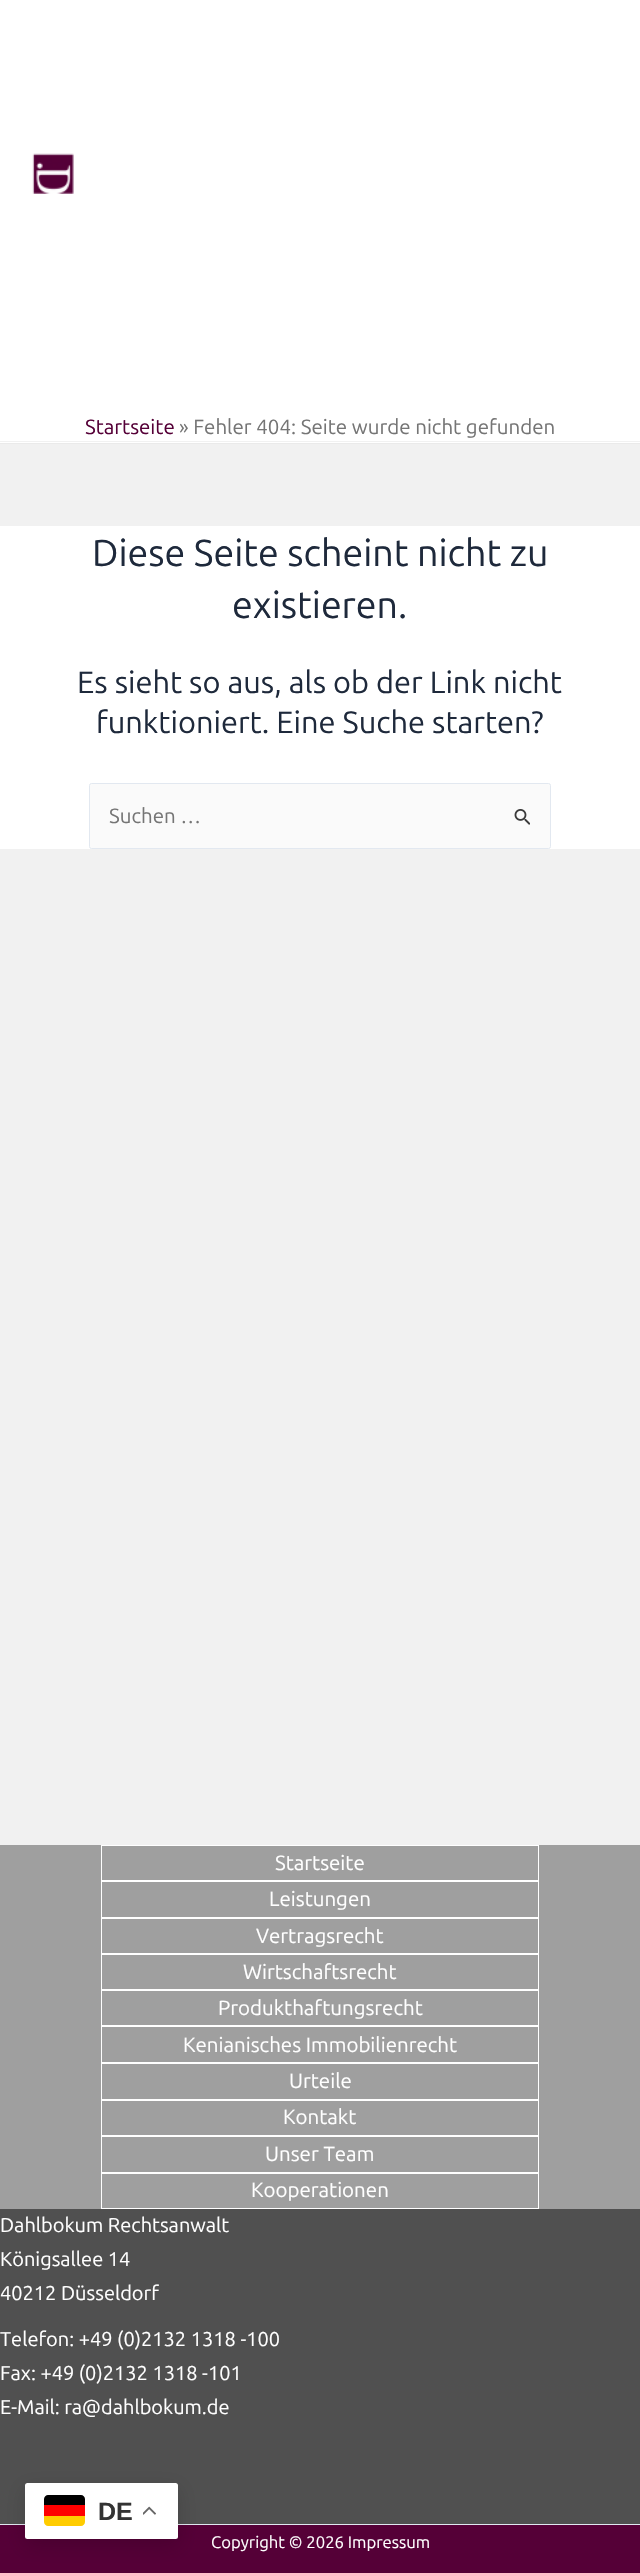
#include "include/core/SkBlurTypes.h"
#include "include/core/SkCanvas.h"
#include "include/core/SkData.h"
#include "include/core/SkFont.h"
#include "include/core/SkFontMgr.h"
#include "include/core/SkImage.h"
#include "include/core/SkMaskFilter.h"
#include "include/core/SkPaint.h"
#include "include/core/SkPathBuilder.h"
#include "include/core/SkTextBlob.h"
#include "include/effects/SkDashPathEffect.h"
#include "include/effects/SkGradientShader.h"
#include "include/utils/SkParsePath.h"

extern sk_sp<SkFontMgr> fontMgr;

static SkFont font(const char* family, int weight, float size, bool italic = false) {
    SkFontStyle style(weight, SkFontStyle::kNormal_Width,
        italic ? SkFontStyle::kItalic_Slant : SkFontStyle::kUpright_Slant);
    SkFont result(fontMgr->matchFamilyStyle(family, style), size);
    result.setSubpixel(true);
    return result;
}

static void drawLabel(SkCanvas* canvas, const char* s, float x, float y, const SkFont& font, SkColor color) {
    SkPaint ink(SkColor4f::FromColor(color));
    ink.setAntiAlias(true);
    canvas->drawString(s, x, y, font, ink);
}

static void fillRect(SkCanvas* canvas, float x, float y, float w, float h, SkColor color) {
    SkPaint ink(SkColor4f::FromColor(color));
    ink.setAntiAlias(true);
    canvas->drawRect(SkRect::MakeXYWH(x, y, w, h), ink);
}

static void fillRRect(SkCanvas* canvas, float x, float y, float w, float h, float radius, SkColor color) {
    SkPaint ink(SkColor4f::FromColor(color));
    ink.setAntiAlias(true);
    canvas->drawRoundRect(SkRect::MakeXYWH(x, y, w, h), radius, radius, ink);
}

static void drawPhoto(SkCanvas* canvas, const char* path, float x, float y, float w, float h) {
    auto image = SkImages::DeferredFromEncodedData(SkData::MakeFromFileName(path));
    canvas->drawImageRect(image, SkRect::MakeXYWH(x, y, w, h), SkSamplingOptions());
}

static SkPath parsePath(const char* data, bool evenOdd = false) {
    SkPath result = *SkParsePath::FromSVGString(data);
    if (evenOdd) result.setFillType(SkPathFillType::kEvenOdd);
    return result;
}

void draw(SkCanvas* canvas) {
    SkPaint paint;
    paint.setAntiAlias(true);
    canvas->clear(0xFFF1F1F1);
    fillRect(canvas, 0, 0, 640, 443, 0xFFFFFFFF);
    drawPhoto(canvas, "assets/img1.png", 32, 153, 42, 41);
    fillRect(canvas, 0, 443, 640, 1, 0xFFEAEAEA);
    fillRect(canvas, 0, 441, 640, 1, 0xFFF1F1F1);
    SkFont font1 = font("Ubuntu", 400, 20.5f);
    drawLabel(canvas, "Startseite", 85, 434, font1, 0xFF550037);
    drawLabel(canvas, "» Fehler 404: Seite wurde nicht gefunden", 179, 434, font1, 0xFF757575);
    fillRect(canvas, 0, 526, 640, 323, 0xFFFFFFFF);
    SkFont font2 = font("Ubuntu", 400, 37.5f);
    drawLabel(canvas, "Diese Seite scheint nicht zu", 92, 566, font2, 0xFF1E293B);
    drawLabel(canvas, "existieren.", 232, 618, font2, 0xFF1E293B);
    SkFont font3 = font("Ubuntu", 400, 30.75f);
    drawLabel(canvas, "Es sieht so aus, als ob der Link nicht", 77, 693, font3, 0xFF1E293B);
    drawLabel(canvas, "funktioniert. Eine Suche starten?", 96, 733, font3, 0xFF1E293B);
    paint.setColor(0xFFFAFAFA);
    canvas->drawRoundRect(SkRect::MakeXYWH(89.5f, 783.5f, 461, 65), 2, 2, paint);
    paint.setStroke(true);
    paint.setStrokeWidth(1);
    paint.setColor(0xFFE2E8F0);
    canvas->drawRoundRect(SkRect::MakeXYWH(89.5f, 783.5f, 461, 65), 2, 2, paint);
    drawLabel(canvas, "Suchen …", 109, 823, font1, 0xFF757575);
    drawPhoto(canvas, "assets/img2.png", 514, 809, 16, 16);
    fillRect(canvas, 0, 1845, 640, 364, 0xFF9F9F9F);
    paint.setColor(0xFFFFFFFF);
    canvas->drawRect(SkRect::MakeXYWH(101.5f, 1845.5f, 437, 35), paint);
    drawLabel(canvas, "Startseite", 275, 1870, font1, 0xFFFFFFFF);
    canvas->drawRect(SkRect::MakeXYWH(101.5f, 1881.5f, 437, 36), paint);
    drawLabel(canvas, "Leistungen", 269, 1906, font1, 0xFFFFFFFF);
    canvas->drawRect(SkRect::MakeXYWH(101.5f, 1918.5f, 437, 35), paint);
    drawLabel(canvas, "Vertragsrecht", 256, 1943, font1, 0xFFFFFFFF);
    canvas->drawRect(SkRect::MakeXYWH(101.5f, 1954.5f, 437, 35), paint);
    drawLabel(canvas, "Wirtschaftsrecht", 243, 1979, font1, 0xFFFFFFFF);
    canvas->drawRect(SkRect::MakeXYWH(101.5f, 1990.5f, 437, 35), paint);
    drawLabel(canvas, "Produkthaftungsrecht", 218, 2015, font1, 0xFFFFFFFF);
    canvas->drawRect(SkRect::MakeXYWH(101.5f, 2026.5f, 437, 36), paint);
    drawLabel(canvas, "Kenianisches Immobilienrecht", 183, 2052, font1, 0xFFFFFFFF);
    canvas->drawRect(SkRect::MakeXYWH(101.5f, 2063.5f, 437, 36), paint);
    drawLabel(canvas, "Urteile", 289, 2088, font1, 0xFFFFFFFF);
    canvas->drawRect(SkRect::MakeXYWH(101.5f, 2100.5f, 437, 35), paint);
    drawLabel(canvas, "Kontakt", 283, 2124, font1, 0xFFFFFFFF);
    canvas->drawRect(SkRect::MakeXYWH(101.5f, 2136.5f, 437, 36), paint);
    drawLabel(canvas, "Unser Team", 265, 2161, font1, 0xFFFFFFFF);
    canvas->drawRect(SkRect::MakeXYWH(101.5f, 2173.5f, 437, 35), paint);
    drawLabel(canvas, "Kooperationen", 251, 2197, font1, 0xFFFFFFFF);
    fillRect(canvas, 0, 2209, 640, 315, 0xFF505050);
    SkFont font4 = font("Ubuntu", 400, 20);
    drawLabel(canvas, "Dahlbokum Rechtsanwalt", 0, 2232, font4, 0xFFFFFFFF);
    drawLabel(canvas, "Königsallee 14", 0, 2266, font4, 0xFFFFFFFF);
    drawLabel(canvas, "40212 Düsseldorf", 0, 2300, font4, 0xFFFFFFFF);
    drawLabel(canvas, "Telefon: +49 (0)2132 1318 -100", 0, 2346, font4, 0xFFFFFFFF);
    drawLabel(canvas, "Fax: +49 (0)2132 1318 -101", 0, 2380, font4, 0xFFFFFFFF);
    drawLabel(canvas, "E-Mail: ra@dahlbokum.de", 0, 2414, font4, 0xFFFFFFFF);
    fillRect(canvas, 0, 2525, 640, 48, 0xFF550037);
    fillRect(canvas, 0, 2524, 640, 1, 0xFFE2E8F0);
    SkFont font5 = font("Ubuntu", 400, 16.7f);
    drawLabel(canvas, "Copyright © 2026 Impressum", 211, 2548, font5, 0xFFFFFFFF);
    paint.setStroke(false);
    paint.setColor(0x26000000);
    paint.setMaskFilter(SkMaskFilter::MakeBlur(kNormal_SkBlurStyle, 9.5f));
    canvas->drawRoundRect(SkRect::MakeXYWH(25, 2489, 153, 56), 2.5f, 2.5f, paint);
    paint.setMaskFilter(nullptr);
    fillRRect(canvas, 25, 2483, 153, 56, 2.5f, 0xFFFFFFFF);
    paint.setColor(0xFFFFCC00);
    canvas->drawPath(parsePath("M44 2516H85V2522C85 2524 83 2526 81 2526H48C46 2526 44 2524 44 2522Z"), paint);
    paint.setColor(0xFF000000);
    canvas->drawPath(parsePath("M48 2495H81C83 2495 85 2497 85 2499V2505H44V2499C44 2497 46 2495 48 2495Z"), paint);
    fillRect(canvas, 44, 2505, 41, 11, 0xFFFF0000);
    SkFont font6 = font("Liberation Sans", 700, 25);
    drawLabel(canvas, "DE", 98, 2520, font6, 0xFF333333);
    drawPhoto(canvas, "assets/img3.png", 143, 2506, 13, 9);
}
